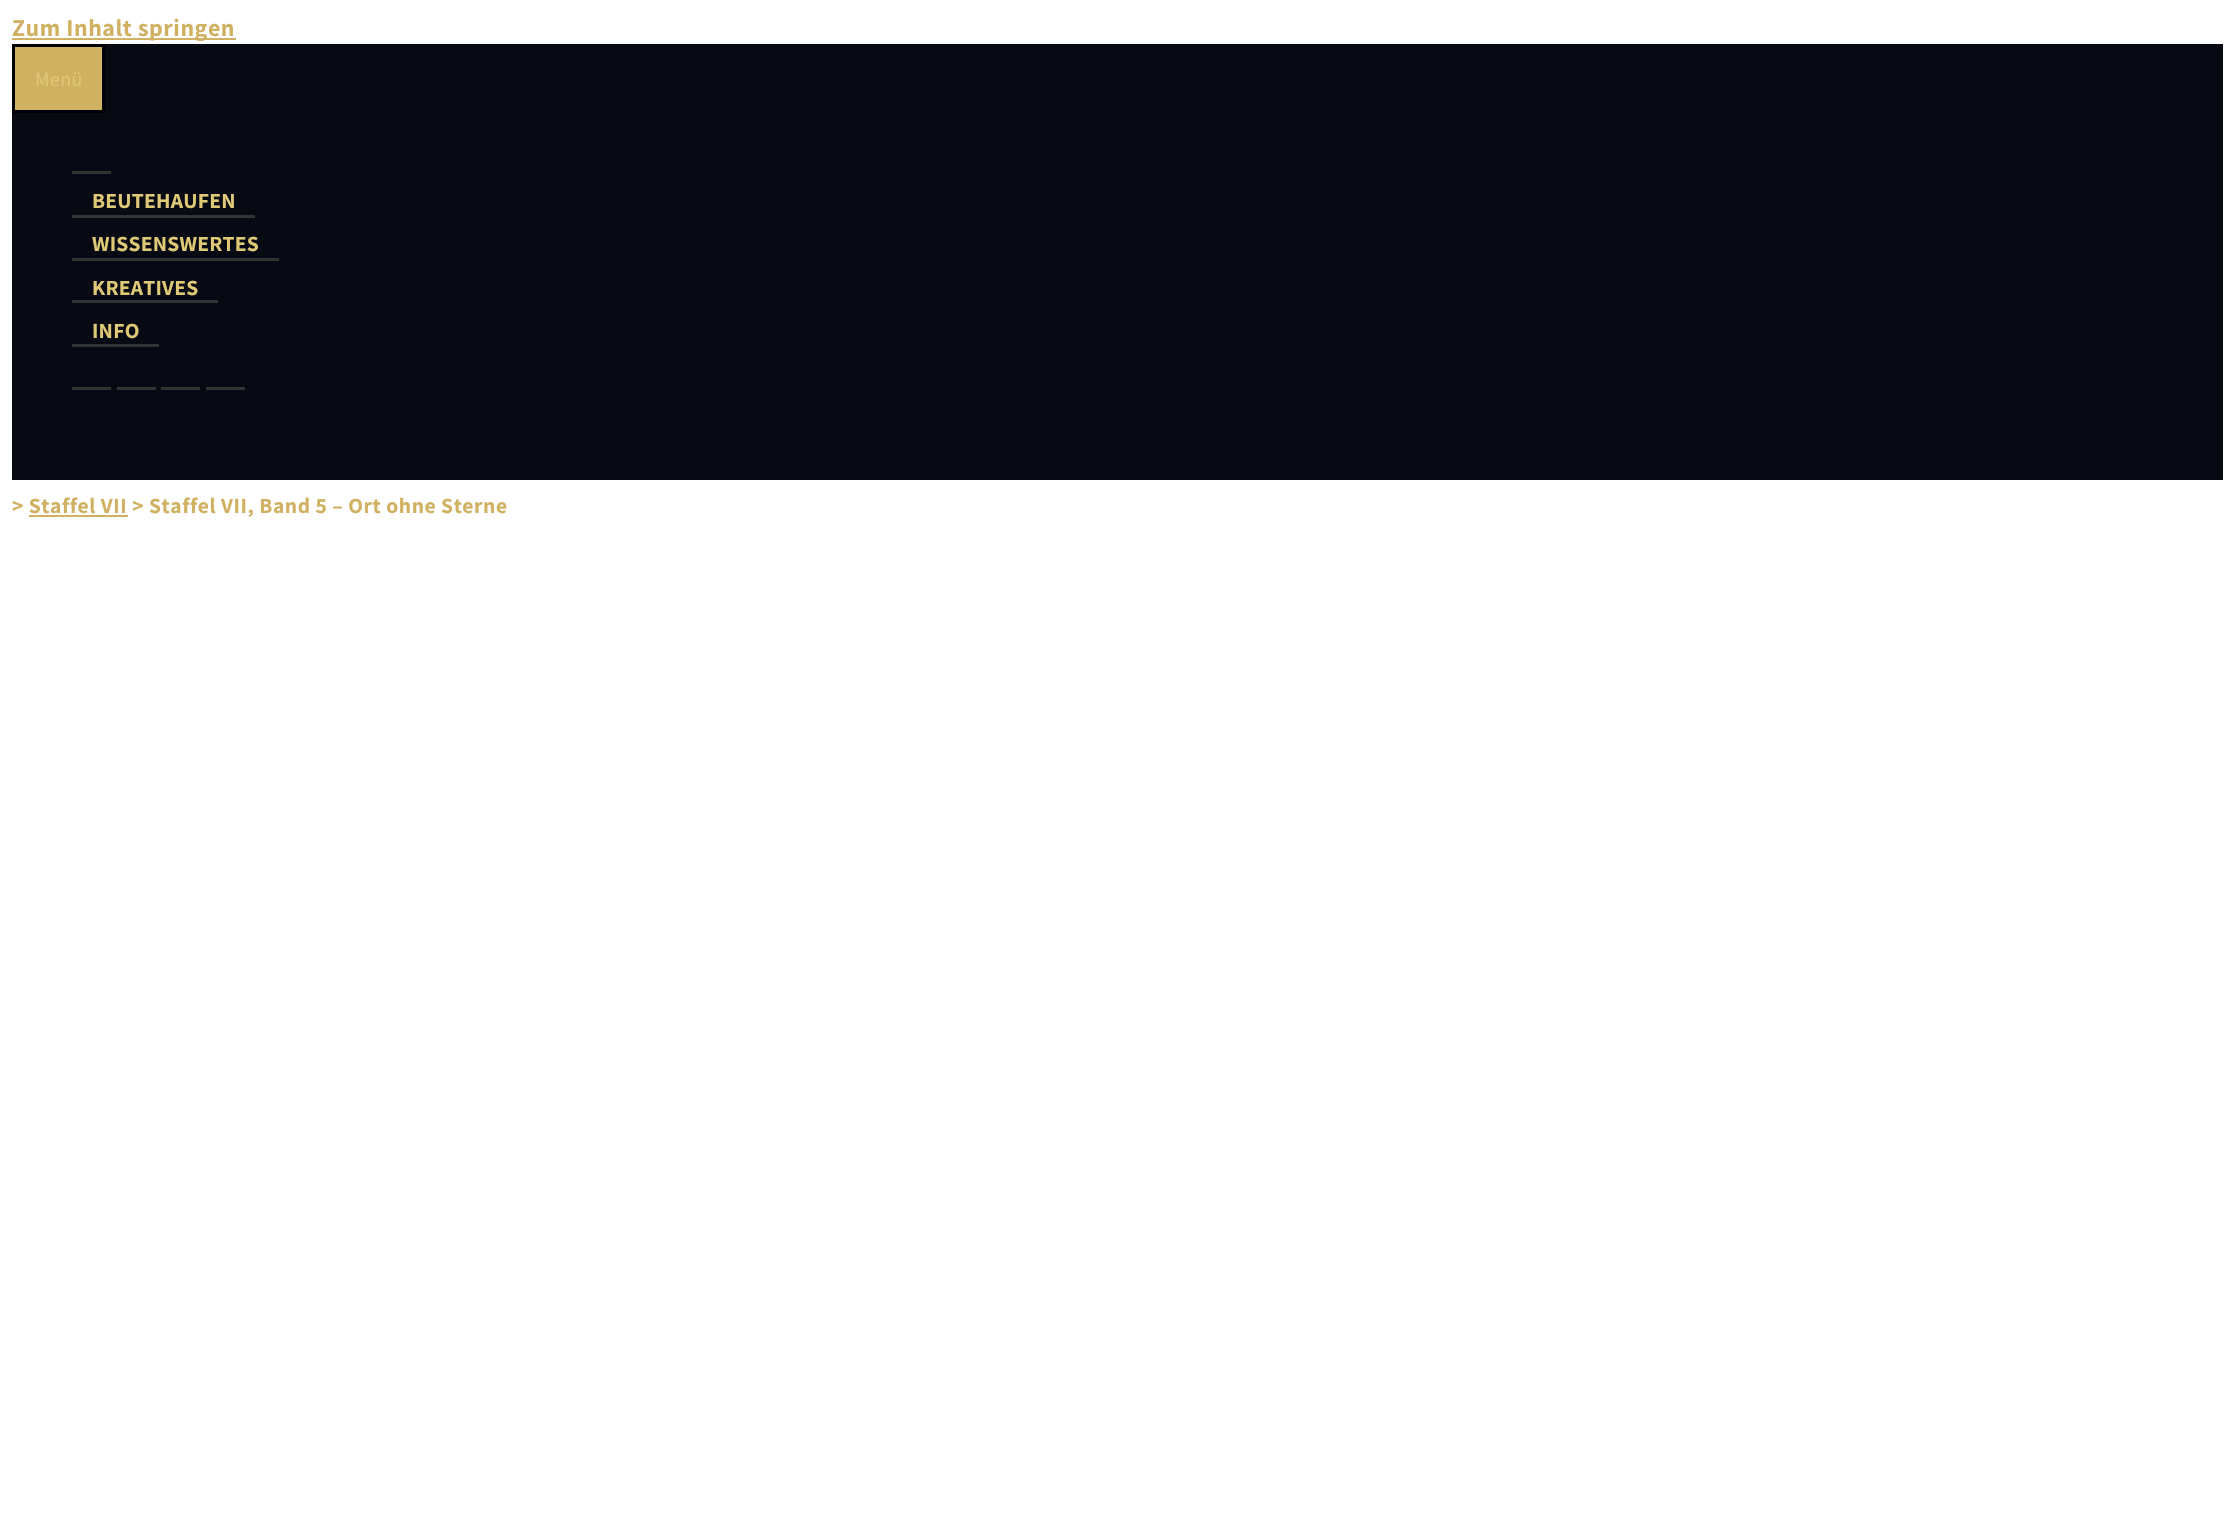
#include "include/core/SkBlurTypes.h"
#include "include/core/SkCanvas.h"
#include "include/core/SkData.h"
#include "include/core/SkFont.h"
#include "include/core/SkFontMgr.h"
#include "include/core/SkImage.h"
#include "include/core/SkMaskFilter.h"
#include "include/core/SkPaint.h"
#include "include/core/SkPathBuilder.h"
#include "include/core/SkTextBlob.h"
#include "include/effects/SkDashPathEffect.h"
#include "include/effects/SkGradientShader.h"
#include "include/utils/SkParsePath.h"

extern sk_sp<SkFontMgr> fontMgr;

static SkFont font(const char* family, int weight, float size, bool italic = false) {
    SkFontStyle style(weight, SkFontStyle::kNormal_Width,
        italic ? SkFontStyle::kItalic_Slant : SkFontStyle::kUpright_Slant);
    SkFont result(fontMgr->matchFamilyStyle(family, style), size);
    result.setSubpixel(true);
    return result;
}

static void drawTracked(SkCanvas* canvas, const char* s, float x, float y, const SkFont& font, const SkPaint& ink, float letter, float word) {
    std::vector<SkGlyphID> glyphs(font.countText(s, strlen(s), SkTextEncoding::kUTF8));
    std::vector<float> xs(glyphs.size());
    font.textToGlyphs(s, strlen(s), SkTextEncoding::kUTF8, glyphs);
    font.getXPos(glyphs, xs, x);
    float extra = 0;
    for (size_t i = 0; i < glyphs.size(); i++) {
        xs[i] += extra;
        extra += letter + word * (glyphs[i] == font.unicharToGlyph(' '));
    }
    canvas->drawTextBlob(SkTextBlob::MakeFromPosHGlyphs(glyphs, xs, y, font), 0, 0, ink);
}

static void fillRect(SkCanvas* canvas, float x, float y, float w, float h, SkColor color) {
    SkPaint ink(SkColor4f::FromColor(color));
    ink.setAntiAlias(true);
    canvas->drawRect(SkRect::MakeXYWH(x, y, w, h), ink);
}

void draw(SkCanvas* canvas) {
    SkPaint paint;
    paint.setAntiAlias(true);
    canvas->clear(0xFFFFFFFF);
    fillRect(canvas, 12, 38, 224, 2, 0xFFD0B061);
    SkFont font1 = font("Assistant", 700, 24);
    paint.setColor(0xFFD0B061);
    drawTracked(canvas, "Zum Inhalt springen", 12, 36, font1, paint, 0.6f, 0);
    fillRect(canvas, 12, 44, 2211, 436, 0xFF070A13);
    canvas->drawRect(SkRect::MakeXYWH(13.5f, 45.5f, 90, 66), paint);
    paint.setStroke(true);
    paint.setStrokeWidth(3);
    paint.setColor(0xFF000000);
    canvas->drawRect(SkRect::MakeXYWH(13.5f, 45.5f, 90, 66), paint);
    SkFont font2 = font("Assistant", 400, 20);
    paint.setStroke(false);
    paint.setColor(0xFFE0C976);
    drawTracked(canvas, "Menü", 35, 86, font2, paint, 0.5f, 0);
    fillRect(canvas, 72, 171, 39, 3, 0xFF333333);
    SkFont font3 = font("Assistant", 700, 21.6f);
    drawTracked(canvas, "BEUTEHAUFEN", 92, 208, font3, paint, 0.25f, 0);
    fillRect(canvas, 72, 215, 183, 3, 0xFF333333);
    drawTracked(canvas, "WISSENSWERTES", 92, 251, font3, paint, 0.25f, 0);
    fillRect(canvas, 72, 258, 207, 3, 0xFF333333);
    drawTracked(canvas, "KREATIVES", 92, 295, font3, paint, 0.25f, 0);
    fillRect(canvas, 72, 300, 146, 3, 0xFF333333);
    drawTracked(canvas, "INFO", 92, 338, font3, paint, 0.25f, 0);
    fillRect(canvas, 72, 344, 87, 3, 0xFF333333);
    fillRect(canvas, 72, 387, 39, 3, 0xFF333333);
    fillRect(canvas, 117, 387, 39, 3, 0xFF333333);
    fillRect(canvas, 161, 387, 39, 3, 0xFF333333);
    fillRect(canvas, 206, 387, 39, 3, 0xFF333333);
    paint.setColor(0xFFD0B061);
    drawTracked(canvas, "> Staffel VII > Staffel VII, Band 5 – Ort ohne Sterne", 12, 513, font3, paint, 0.6f, 0);
    fillRect(canvas, 29, 515, 99, 2, 0xFFD0B061);
}
